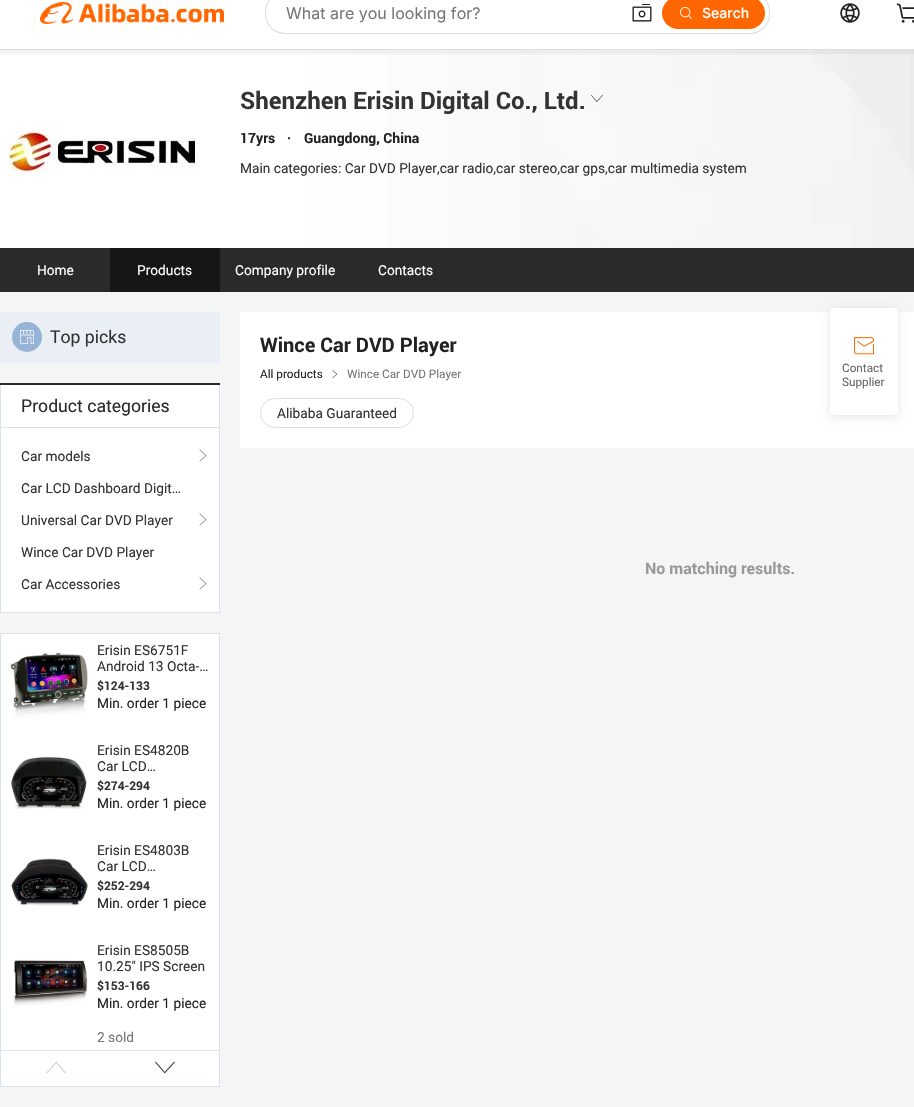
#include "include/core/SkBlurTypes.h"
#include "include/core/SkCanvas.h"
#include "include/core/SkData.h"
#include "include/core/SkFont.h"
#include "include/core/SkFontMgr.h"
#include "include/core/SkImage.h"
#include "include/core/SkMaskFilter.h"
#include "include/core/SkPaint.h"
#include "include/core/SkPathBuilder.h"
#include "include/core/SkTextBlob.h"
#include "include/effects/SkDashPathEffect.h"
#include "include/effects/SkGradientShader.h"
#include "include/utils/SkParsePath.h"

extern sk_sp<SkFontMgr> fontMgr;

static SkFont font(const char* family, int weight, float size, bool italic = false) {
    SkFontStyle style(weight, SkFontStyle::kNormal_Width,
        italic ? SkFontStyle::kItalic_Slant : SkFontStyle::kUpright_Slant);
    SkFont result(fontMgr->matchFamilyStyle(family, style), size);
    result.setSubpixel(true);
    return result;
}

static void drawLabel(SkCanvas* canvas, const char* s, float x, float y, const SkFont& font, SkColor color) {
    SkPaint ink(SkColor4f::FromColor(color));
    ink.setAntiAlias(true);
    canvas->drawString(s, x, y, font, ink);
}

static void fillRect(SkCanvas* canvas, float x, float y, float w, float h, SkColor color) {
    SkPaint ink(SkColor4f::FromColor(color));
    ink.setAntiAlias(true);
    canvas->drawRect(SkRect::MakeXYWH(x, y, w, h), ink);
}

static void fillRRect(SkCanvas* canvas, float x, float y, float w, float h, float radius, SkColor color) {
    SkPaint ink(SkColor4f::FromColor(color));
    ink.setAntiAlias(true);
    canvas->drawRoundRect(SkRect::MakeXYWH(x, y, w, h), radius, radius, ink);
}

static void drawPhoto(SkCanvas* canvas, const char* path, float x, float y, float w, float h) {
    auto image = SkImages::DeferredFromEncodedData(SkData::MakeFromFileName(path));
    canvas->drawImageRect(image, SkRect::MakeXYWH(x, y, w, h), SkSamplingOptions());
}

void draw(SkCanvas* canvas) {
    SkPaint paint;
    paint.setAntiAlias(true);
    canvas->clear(0xFFFFFFFF);
    drawPhoto(canvas, "assets/img6.png", 0, 50, 914, 198);
    paint.setColor(0x0D000000);
    paint.setMaskFilter(SkMaskFilter::MakeBlur(kNormal_SkBlurStyle, 1));
    canvas->drawRect(SkRect::MakeXYWH(-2, 50, 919, 4), paint);
    paint.setMaskFilter(nullptr);
    fillRect(canvas, 0, 49, 914, 1, 0xFFDDDDDD);
    drawPhoto(canvas, "assets/img1.png", 40, 2, 184, 22);
    fillRRect(canvas, 265, -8, 505, 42, 20, 0xFFDDDDDD);
    fillRRect(canvas, 266, -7, 503, 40, 19, 0xFFFFFFFF);
    SkFont font1 = font("Inter", 400, 16);
    drawLabel(canvas, "What are you looking for?", 286, 19, font1, 0xFF767676);
    drawPhoto(canvas, "assets/img2.png", 632, 4, 20, 18);
    fillRRect(canvas, 662, -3, 103, 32, 16, 0xFFFF6600);
    drawPhoto(canvas, "assets/img3.png", 680, 7, 12, 12);
    SkFont font2 = font("Inter", 500, 14);
    drawLabel(canvas, "Search", 702, 18, font2, 0xFFFFFFFF);
    drawPhoto(canvas, "assets/img4.png", 840, 3, 20, 20);
    drawPhoto(canvas, "assets/img5.png", 896, 3, 18, 20);
    drawPhoto(canvas, "assets/img7.png", 7, 130, 193, 44);
    SkFont font3 = font("Roboto", 700, 24);
    drawLabel(canvas, "Shenzhen Erisin Digital Co., Ltd.", 240, 109, font3, 0xFF333333);
    drawPhoto(canvas, "assets/img8.png", 591, 95, 12, 7);
    SkFont font4 = font("Roboto", 700, 14);
    drawLabel(canvas, "17yrs", 240, 143, font4, 0xFF222222);
    drawLabel(canvas, "·", 287, 143, font4, 0xFF222222);
    drawLabel(canvas, "Guangdong, China", 304, 143, font4, 0xFF222222);
    SkFont font5 = font("Roboto", 400, 14);
    drawLabel(canvas, "Main categories: Car DVD Player,car radio,car stereo,car gps,car multimedia system", 240, 173, font5, 0xFF333333);
    fillRect(canvas, 0, 248, 914, 44, 0xFF2A2A2A);
    drawLabel(canvas, "Home", 37, 275, font5, 0xFFFFFFFF);
    fillRect(canvas, 110, 248, 110, 44, 0xFF161616);
    drawLabel(canvas, "Products", 137, 275, font5, 0xFFFFFFFF);
    drawLabel(canvas, "Company profile", 235, 275, font5, 0xFFFFFFFF);
    drawLabel(canvas, "Contacts", 378, 275, font5, 0xFFFFFFFF);
    fillRect(canvas, 0, 292, 914, 815, 0xFFF5F5F5);
    fillRect(canvas, 0, 312, 220, 51, 0xFFE9EFF5);
    paint.setColor(0xFF97B3D5);
    canvas->drawCircle(27, 337, 15, paint);
    drawPhoto(canvas, "assets/img9.png", 20, 330, 14, 14);
    SkFont font6 = font("Roboto", 400, 18);
    drawLabel(canvas, "Top picks", 50, 343, font6, 0xFF333333);
    fillRect(canvas, 1, 385, 218, 227, 0xFFFFFFFF);
    fillRect(canvas, 0, 383, 220, 2, 0xFF2A2A2A);
    fillRect(canvas, 219, 385, 1, 228, 0xFFDBE3EF);
    fillRect(canvas, 0, 612, 220, 1, 0xFFDBE3EF);
    fillRect(canvas, 0, 385, 1, 228, 0xFFDBE3EF);
    fillRect(canvas, 1, 427, 218, 1, 0xFFDBE3EF);
    drawLabel(canvas, "Product categories", 21, 412, font6, 0xFF2A2A2A);
    drawLabel(canvas, "Car models", 21, 461, font5, 0xFF333333);
    drawPhoto(canvas, "assets/img10.png", 199, 449, 8, 13);
    drawLabel(canvas, "Car LCD Dashboard Digit…", 21, 493, font5, 0xFF333333);
    drawLabel(canvas, "Universal Car DVD Player", 21, 525, font5, 0xFF333333);
    drawPhoto(canvas, "assets/img10.png", 199, 513, 8, 13);
    drawLabel(canvas, "Wince Car DVD Player", 21, 557, font5, 0xFF333333);
    drawLabel(canvas, "Car Accessories", 21, 589, font5, 0xFF333333);
    drawPhoto(canvas, "assets/img10.png", 199, 577, 8, 13);
    paint.setColor(0xFFFFFFFF);
    canvas->drawRect(SkRect::MakeXYWH(0.5f, 633.5f, 219, 453), paint);
    paint.setStroke(true);
    paint.setStrokeWidth(1);
    paint.setColor(0xFFDBE3EF);
    canvas->drawRect(SkRect::MakeXYWH(0.5f, 633.5f, 219, 453), paint);
    drawPhoto(canvas, "assets/img11.png", 10, 652, 79, 66);
    drawLabel(canvas, "Erisin ES6751F", 97, 655, font5, 0xFF333333);
    drawLabel(canvas, "Android 13 Octa-…", 97, 671, font5, 0xFF333333);
    SkFont font7 = font("Roboto", 700, 12);
    drawLabel(canvas, "$124-133", 97, 690, font7, 0xFF333333);
    drawLabel(canvas, "Min. order 1 piece", 97, 708, font5, 0xFF222222);
    drawPhoto(canvas, "assets/img12.png", 11, 757, 76, 52);
    drawLabel(canvas, "Erisin ES4820B", 97, 755, font5, 0xFF333333);
    drawLabel(canvas, "Car LCD…", 97, 771, font5, 0xFF333333);
    drawLabel(canvas, "$274-294", 97, 790, font7, 0xFF333333);
    drawLabel(canvas, "Min. order 1 piece", 97, 808, font5, 0xFF222222);
    drawPhoto(canvas, "assets/img13.png", 11, 858, 77, 48);
    drawLabel(canvas, "Erisin ES4803B", 97, 855, font5, 0xFF333333);
    drawLabel(canvas, "Car LCD…", 97, 871, font5, 0xFF333333);
    drawLabel(canvas, "$252-294", 97, 890, font7, 0xFF333333);
    drawLabel(canvas, "Min. order 1 piece", 97, 908, font5, 0xFF222222);
    drawPhoto(canvas, "assets/img14.png", 14, 960, 74, 46);
    drawLabel(canvas, "Erisin ES8505B", 97, 955, font5, 0xFF333333);
    drawLabel(canvas, "10.25\" IPS Screen", 97, 971, font5, 0xFF333333);
    drawLabel(canvas, "$153-166", 97, 990, font7, 0xFF333333);
    drawLabel(canvas, "Min. order 1 piece", 97, 1008, font5, 0xFF222222);
    canvas->save();
    canvas->clipRect(SkRect::MakeXYWH(97, 942, 114, 100));
    drawLabel(canvas, "2 sold", 97, 1042, font5, 0xFF767676);
    canvas->restore();
    fillRect(canvas, 1, 1050, 218, 1, 0xFFDBE3EF);
    drawPhoto(canvas, "assets/img15.png", 46, 1061, 20, 13);
    drawPhoto(canvas, "assets/img16.png", 155, 1061, 20, 13);
    fillRect(canvas, 240, 312, 674, 136, 0xFFFFFFFF);
    SkFont font8 = font("Roboto", 700, 20);
    drawLabel(canvas, "Wince Car DVD Player", 260, 352, font8, 0xFF222222);
    SkFont font9 = font("Roboto", 400, 12);
    drawLabel(canvas, "All products", 260, 378, font9, 0xFF222222);
    drawPhoto(canvas, "assets/img17.png", 332, 370, 6, 9);
    drawLabel(canvas, "Wince Car DVD Player", 347, 378, font9, 0xFF767676);
    paint.setColor(0xFFDDDDDD);
    canvas->drawRoundRect(SkRect::MakeXYWH(260.5f, 398.5f, 153, 29), 14.5f, 14.5f, paint);
    drawLabel(canvas, "Alibaba Guaranteed", 277, 418, font5, 0xFF333333);
    SkFont font10 = font("Roboto", 700, 16);
    drawLabel(canvas, "No matching results.", 645, 574, font10, 0xFF999999);
    paint.setStroke(false);
    paint.setColor(0x1A000000);
    paint.setMaskFilter(SkMaskFilter::MakeBlur(kNormal_SkBlurStyle, 5));
    canvas->drawRoundRect(SkRect::MakeXYWH(830, 310, 68, 107), 4, 4, paint);
    paint.setMaskFilter(nullptr);
    fillRRect(canvas, 830, 308, 68, 107, 4, 0xFFFFFFFF);
    drawPhoto(canvas, "assets/img18.png", 854, 337, 20, 18);
    drawLabel(canvas, "Contact", 842, 372, font9, 0xFF666666);
    drawLabel(canvas, "Supplier", 842, 386, font9, 0xFF666666);
}
